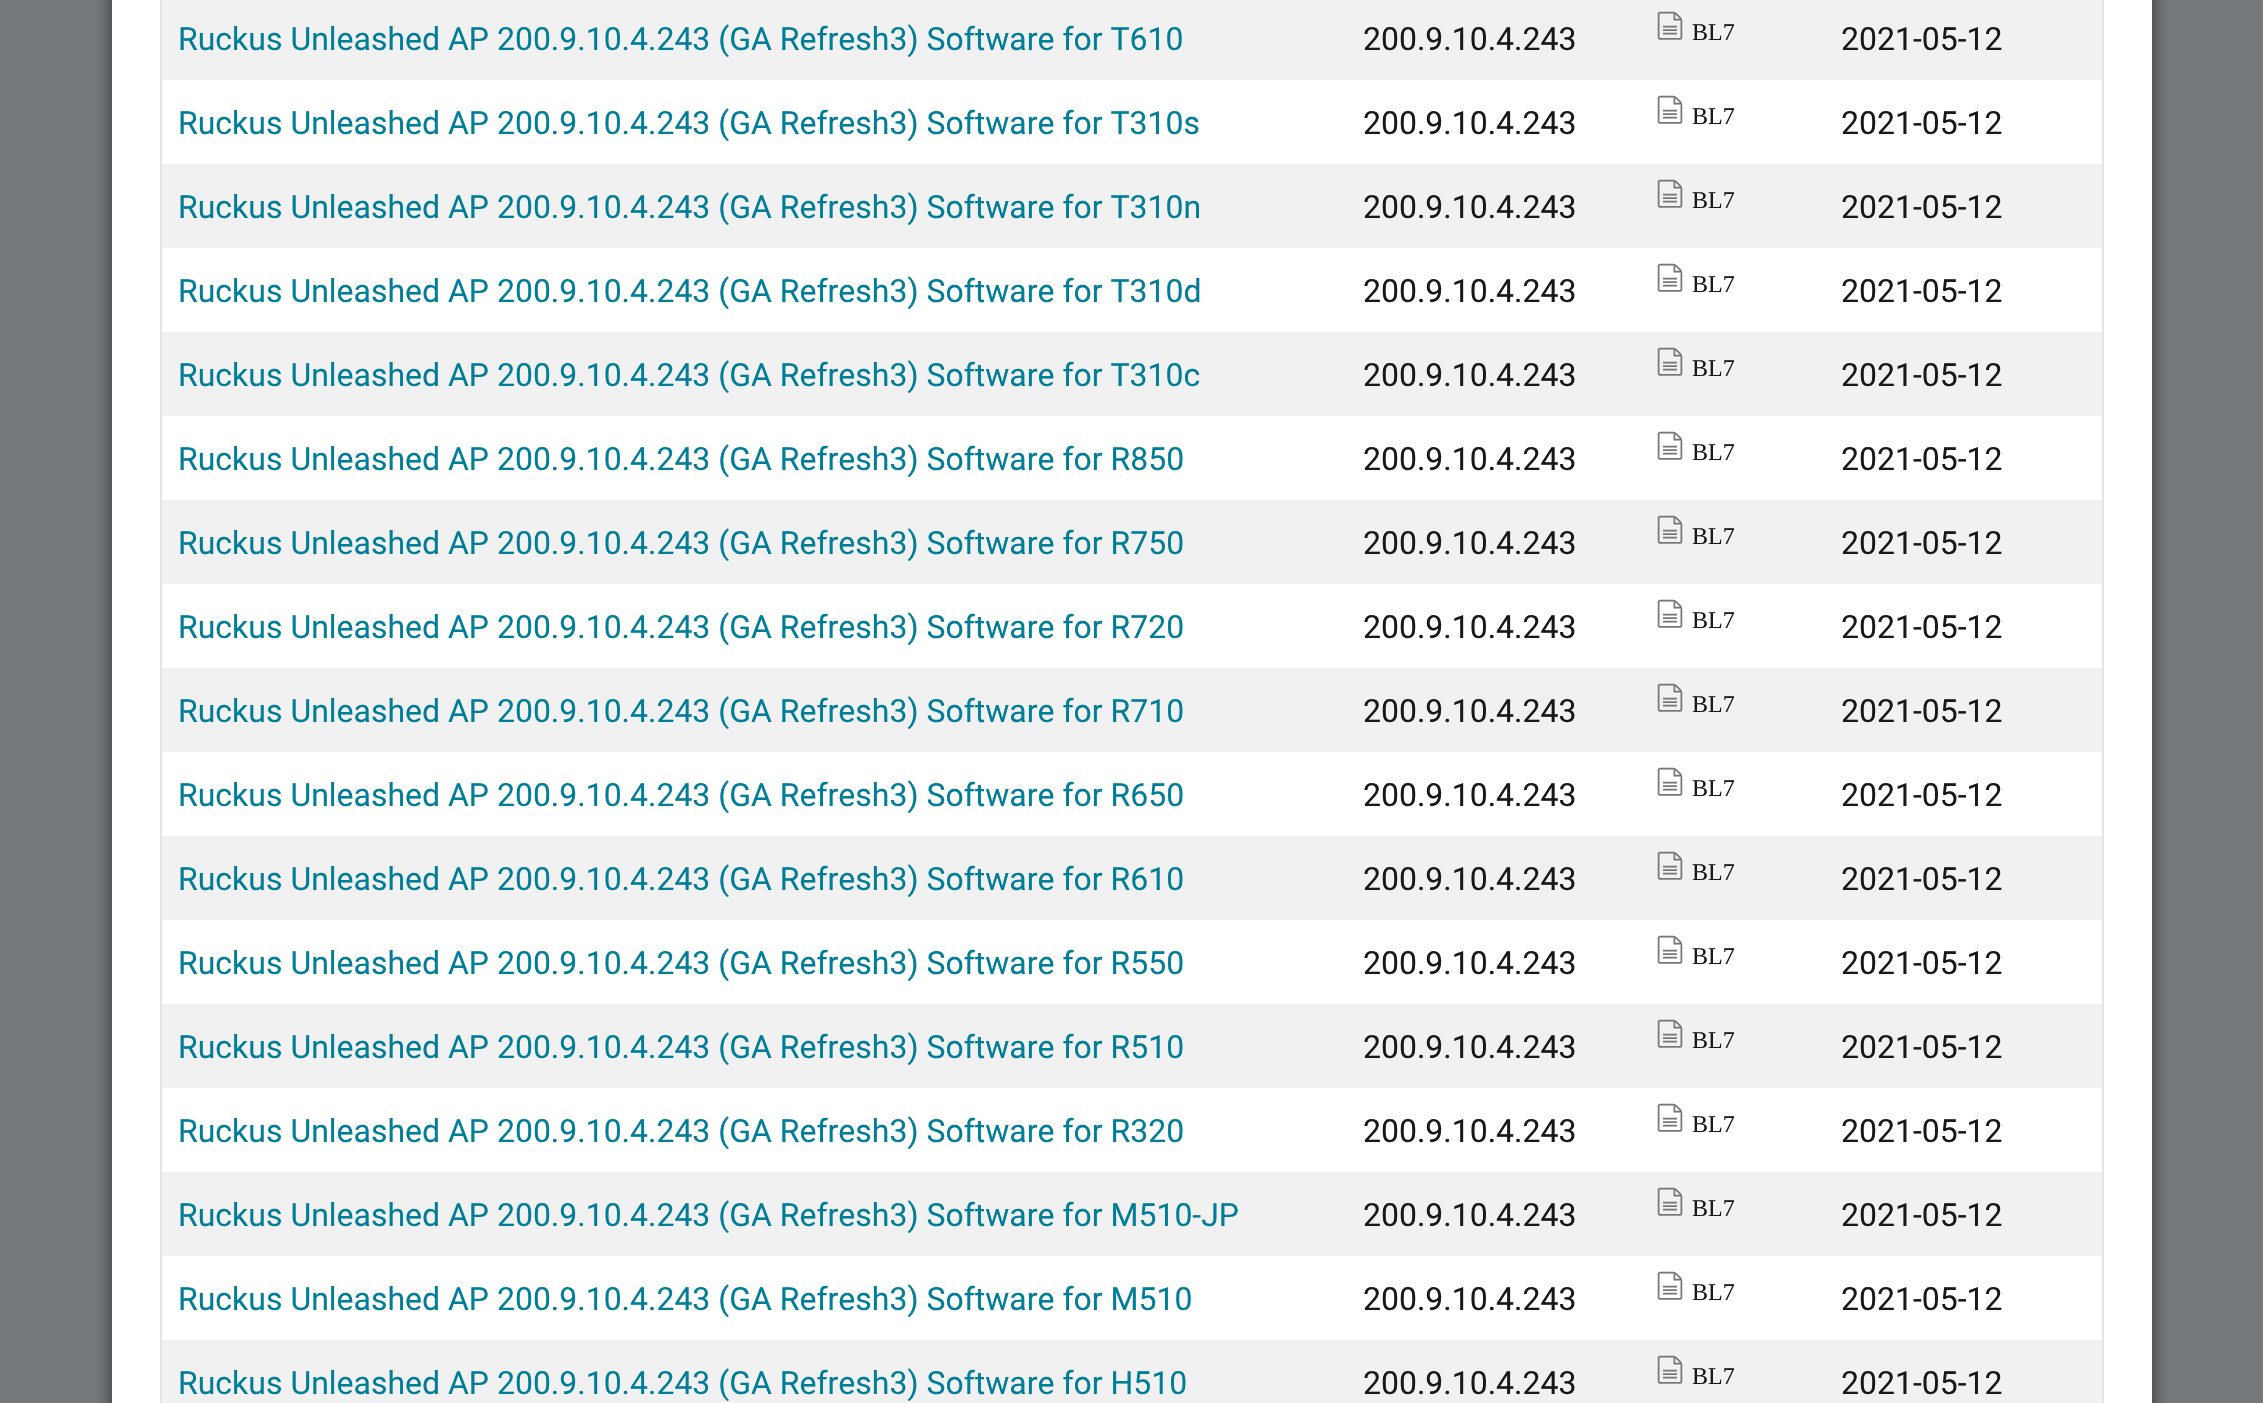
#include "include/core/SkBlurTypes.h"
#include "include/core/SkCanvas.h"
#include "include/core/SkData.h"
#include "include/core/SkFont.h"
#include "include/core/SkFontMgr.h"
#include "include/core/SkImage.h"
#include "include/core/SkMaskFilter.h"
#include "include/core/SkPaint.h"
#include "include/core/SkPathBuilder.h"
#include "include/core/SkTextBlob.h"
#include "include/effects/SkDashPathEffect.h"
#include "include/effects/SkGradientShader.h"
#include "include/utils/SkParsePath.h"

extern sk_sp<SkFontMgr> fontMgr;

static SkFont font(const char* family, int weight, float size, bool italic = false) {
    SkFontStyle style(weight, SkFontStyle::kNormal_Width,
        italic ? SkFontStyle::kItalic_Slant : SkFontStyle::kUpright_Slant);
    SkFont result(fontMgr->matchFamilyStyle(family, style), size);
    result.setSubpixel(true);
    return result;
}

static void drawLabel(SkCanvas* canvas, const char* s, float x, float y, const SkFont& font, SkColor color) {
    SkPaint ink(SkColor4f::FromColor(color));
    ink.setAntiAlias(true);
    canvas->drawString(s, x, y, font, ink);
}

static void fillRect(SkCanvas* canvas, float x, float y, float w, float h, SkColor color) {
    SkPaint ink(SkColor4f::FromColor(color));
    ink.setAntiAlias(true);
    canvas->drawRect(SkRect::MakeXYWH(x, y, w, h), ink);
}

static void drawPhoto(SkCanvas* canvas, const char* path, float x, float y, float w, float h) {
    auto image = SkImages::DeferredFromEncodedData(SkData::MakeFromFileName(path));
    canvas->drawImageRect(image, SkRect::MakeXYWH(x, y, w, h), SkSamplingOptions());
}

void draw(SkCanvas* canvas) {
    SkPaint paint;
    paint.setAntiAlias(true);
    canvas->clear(0xFF75787B);
    paint.setColor(0xFF2F3031);
    paint.setMaskFilter(SkMaskFilter::MakeBlur(kNormal_SkBlurStyle, 8));
    canvas->drawRect(SkRect::MakeXYWH(112, -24, 2040, 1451), paint);
    paint.setMaskFilter(nullptr);
    fillRect(canvas, 112, 0, 2040, 1403, 0xFFFFFFFF);
    fillRect(canvas, 2102, 0, 2, 1403, 0xFFE3E4E5);
    fillRect(canvas, 160, 0, 2, 1403, 0xFFE3E4E5);
    fillRect(canvas, 162, 0, 1940, 80, 0xFFF1F1F2);
    SkFont font1 = font("Roboto", 400, 32);
    drawLabel(canvas, "Ruckus Unleashed AP 200.9.10.4.243 (GA Refresh3) Software for T610", 178, 50, font1, 0xFF007D98);
    drawLabel(canvas, "200.9.10.4.243", 1363, 50, font1, 0xFF171818);
    drawPhoto(canvas, "assets/img1.png", 1657, 11, 26, 29);
    SkFont font2 = font("Liberation Serif", 400, 24);
    drawLabel(canvas, "BL7", 1692, 40, font2, 0xFF171818);
    drawLabel(canvas, "2021-05-12", 1841, 50, font1, 0xFF171818);
    drawLabel(canvas, "Ruckus Unleashed AP 200.9.10.4.243 (GA Refresh3) Software for T310s", 178, 134, font1, 0xFF007D98);
    drawLabel(canvas, "200.9.10.4.243", 1363, 134, font1, 0xFF171818);
    drawPhoto(canvas, "assets/img2.png", 1657, 95, 26, 29);
    drawLabel(canvas, "BL7", 1692, 124, font2, 0xFF171818);
    drawLabel(canvas, "2021-05-12", 1841, 134, font1, 0xFF171818);
    fillRect(canvas, 162, 164, 1940, 84, 0xFFF1F1F2);
    drawLabel(canvas, "Ruckus Unleashed AP 200.9.10.4.243 (GA Refresh3) Software for T310n", 178, 218, font1, 0xFF007D98);
    drawLabel(canvas, "200.9.10.4.243", 1363, 218, font1, 0xFF171818);
    drawPhoto(canvas, "assets/img1.png", 1657, 179, 26, 29);
    drawLabel(canvas, "BL7", 1692, 208, font2, 0xFF171818);
    drawLabel(canvas, "2021-05-12", 1841, 218, font1, 0xFF171818);
    drawLabel(canvas, "Ruckus Unleashed AP 200.9.10.4.243 (GA Refresh3) Software for T310d", 178, 302, font1, 0xFF007D98);
    drawLabel(canvas, "200.9.10.4.243", 1363, 302, font1, 0xFF171818);
    drawPhoto(canvas, "assets/img2.png", 1657, 263, 26, 29);
    drawLabel(canvas, "BL7", 1692, 292, font2, 0xFF171818);
    drawLabel(canvas, "2021-05-12", 1841, 302, font1, 0xFF171818);
    fillRect(canvas, 162, 332, 1940, 84, 0xFFF1F1F2);
    drawLabel(canvas, "Ruckus Unleashed AP 200.9.10.4.243 (GA Refresh3) Software for T310c", 178, 386, font1, 0xFF007D98);
    drawLabel(canvas, "200.9.10.4.243", 1363, 386, font1, 0xFF171818);
    drawPhoto(canvas, "assets/img1.png", 1657, 347, 26, 29);
    drawLabel(canvas, "BL7", 1692, 376, font2, 0xFF171818);
    drawLabel(canvas, "2021-05-12", 1841, 386, font1, 0xFF171818);
    drawLabel(canvas, "Ruckus Unleashed AP 200.9.10.4.243 (GA Refresh3) Software for R850", 178, 470, font1, 0xFF007D98);
    drawLabel(canvas, "200.9.10.4.243", 1363, 470, font1, 0xFF171818);
    drawPhoto(canvas, "assets/img2.png", 1657, 431, 26, 29);
    drawLabel(canvas, "BL7", 1692, 460, font2, 0xFF171818);
    drawLabel(canvas, "2021-05-12", 1841, 470, font1, 0xFF171818);
    fillRect(canvas, 162, 500, 1940, 84, 0xFFF1F1F2);
    drawLabel(canvas, "Ruckus Unleashed AP 200.9.10.4.243 (GA Refresh3) Software for R750", 178, 554, font1, 0xFF007D98);
    drawLabel(canvas, "200.9.10.4.243", 1363, 554, font1, 0xFF171818);
    drawPhoto(canvas, "assets/img1.png", 1657, 515, 26, 29);
    drawLabel(canvas, "BL7", 1692, 544, font2, 0xFF171818);
    drawLabel(canvas, "2021-05-12", 1841, 554, font1, 0xFF171818);
    drawLabel(canvas, "Ruckus Unleashed AP 200.9.10.4.243 (GA Refresh3) Software for R720", 178, 638, font1, 0xFF007D98);
    drawLabel(canvas, "200.9.10.4.243", 1363, 638, font1, 0xFF171818);
    drawPhoto(canvas, "assets/img2.png", 1657, 599, 26, 29);
    drawLabel(canvas, "BL7", 1692, 628, font2, 0xFF171818);
    drawLabel(canvas, "2021-05-12", 1841, 638, font1, 0xFF171818);
    fillRect(canvas, 162, 668, 1940, 84, 0xFFF1F1F2);
    drawLabel(canvas, "Ruckus Unleashed AP 200.9.10.4.243 (GA Refresh3) Software for R710", 178, 722, font1, 0xFF007D98);
    drawLabel(canvas, "200.9.10.4.243", 1363, 722, font1, 0xFF171818);
    drawPhoto(canvas, "assets/img1.png", 1657, 683, 26, 29);
    drawLabel(canvas, "BL7", 1692, 712, font2, 0xFF171818);
    drawLabel(canvas, "2021-05-12", 1841, 722, font1, 0xFF171818);
    drawLabel(canvas, "Ruckus Unleashed AP 200.9.10.4.243 (GA Refresh3) Software for R650", 178, 806, font1, 0xFF007D98);
    drawLabel(canvas, "200.9.10.4.243", 1363, 806, font1, 0xFF171818);
    drawPhoto(canvas, "assets/img2.png", 1657, 767, 26, 29);
    drawLabel(canvas, "BL7", 1692, 796, font2, 0xFF171818);
    drawLabel(canvas, "2021-05-12", 1841, 806, font1, 0xFF171818);
    fillRect(canvas, 162, 836, 1940, 84, 0xFFF1F1F2);
    drawLabel(canvas, "Ruckus Unleashed AP 200.9.10.4.243 (GA Refresh3) Software for R610", 178, 890, font1, 0xFF007D98);
    drawLabel(canvas, "200.9.10.4.243", 1363, 890, font1, 0xFF171818);
    drawPhoto(canvas, "assets/img1.png", 1657, 851, 26, 29);
    drawLabel(canvas, "BL7", 1692, 880, font2, 0xFF171818);
    drawLabel(canvas, "2021-05-12", 1841, 890, font1, 0xFF171818);
    drawLabel(canvas, "Ruckus Unleashed AP 200.9.10.4.243 (GA Refresh3) Software for R550", 178, 974, font1, 0xFF007D98);
    drawLabel(canvas, "200.9.10.4.243", 1363, 974, font1, 0xFF171818);
    drawPhoto(canvas, "assets/img2.png", 1657, 935, 26, 29);
    drawLabel(canvas, "BL7", 1692, 964, font2, 0xFF171818);
    drawLabel(canvas, "2021-05-12", 1841, 974, font1, 0xFF171818);
    fillRect(canvas, 162, 1004, 1940, 84, 0xFFF1F1F2);
    drawLabel(canvas, "Ruckus Unleashed AP 200.9.10.4.243 (GA Refresh3) Software for R510", 178, 1058, font1, 0xFF007D98);
    drawLabel(canvas, "200.9.10.4.243", 1363, 1058, font1, 0xFF171818);
    drawPhoto(canvas, "assets/img1.png", 1657, 1019, 26, 29);
    drawLabel(canvas, "BL7", 1692, 1048, font2, 0xFF171818);
    drawLabel(canvas, "2021-05-12", 1841, 1058, font1, 0xFF171818);
    drawLabel(canvas, "Ruckus Unleashed AP 200.9.10.4.243 (GA Refresh3) Software for R320", 178, 1142, font1, 0xFF007D98);
    drawLabel(canvas, "200.9.10.4.243", 1363, 1142, font1, 0xFF171818);
    drawPhoto(canvas, "assets/img2.png", 1657, 1103, 26, 29);
    drawLabel(canvas, "BL7", 1692, 1132, font2, 0xFF171818);
    drawLabel(canvas, "2021-05-12", 1841, 1142, font1, 0xFF171818);
    fillRect(canvas, 162, 1172, 1940, 84, 0xFFF1F1F2);
    drawLabel(canvas, "Ruckus Unleashed AP 200.9.10.4.243 (GA Refresh3) Software for M510-JP", 178, 1226, font1, 0xFF007D98);
    drawLabel(canvas, "200.9.10.4.243", 1363, 1226, font1, 0xFF171818);
    drawPhoto(canvas, "assets/img1.png", 1657, 1187, 26, 29);
    drawLabel(canvas, "BL7", 1692, 1216, font2, 0xFF171818);
    drawLabel(canvas, "2021-05-12", 1841, 1226, font1, 0xFF171818);
    drawLabel(canvas, "Ruckus Unleashed AP 200.9.10.4.243 (GA Refresh3) Software for M510", 178, 1310, font1, 0xFF007D98);
    drawLabel(canvas, "200.9.10.4.243", 1363, 1310, font1, 0xFF171818);
    drawPhoto(canvas, "assets/img2.png", 1657, 1271, 26, 29);
    drawLabel(canvas, "BL7", 1692, 1300, font2, 0xFF171818);
    drawLabel(canvas, "2021-05-12", 1841, 1310, font1, 0xFF171818);
    fillRect(canvas, 162, 1340, 1940, 63, 0xFFF1F1F2);
    drawLabel(canvas, "Ruckus Unleashed AP 200.9.10.4.243 (GA Refresh3) Software for H510", 178, 1394, font1, 0xFF007D98);
    drawLabel(canvas, "200.9.10.4.243", 1363, 1394, font1, 0xFF171818);
    drawPhoto(canvas, "assets/img1.png", 1657, 1355, 26, 29);
    drawLabel(canvas, "BL7", 1692, 1384, font2, 0xFF171818);
    drawLabel(canvas, "2021-05-12", 1841, 1394, font1, 0xFF171818);
}
